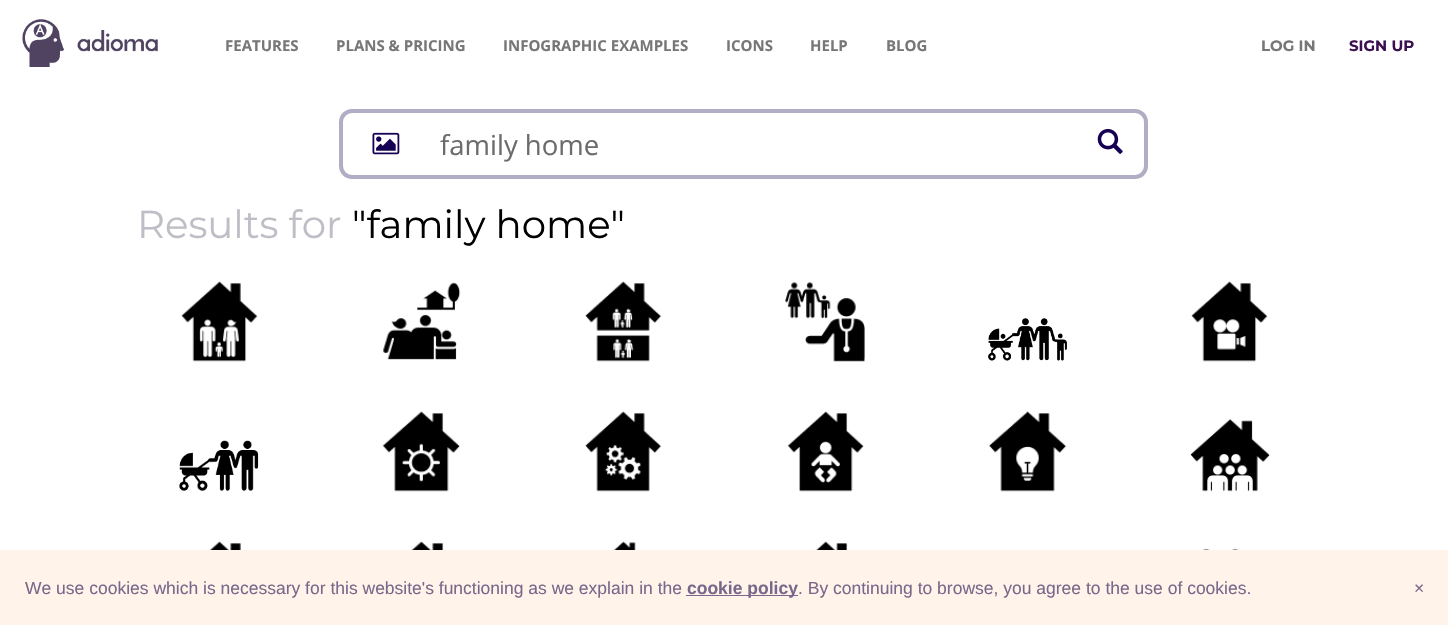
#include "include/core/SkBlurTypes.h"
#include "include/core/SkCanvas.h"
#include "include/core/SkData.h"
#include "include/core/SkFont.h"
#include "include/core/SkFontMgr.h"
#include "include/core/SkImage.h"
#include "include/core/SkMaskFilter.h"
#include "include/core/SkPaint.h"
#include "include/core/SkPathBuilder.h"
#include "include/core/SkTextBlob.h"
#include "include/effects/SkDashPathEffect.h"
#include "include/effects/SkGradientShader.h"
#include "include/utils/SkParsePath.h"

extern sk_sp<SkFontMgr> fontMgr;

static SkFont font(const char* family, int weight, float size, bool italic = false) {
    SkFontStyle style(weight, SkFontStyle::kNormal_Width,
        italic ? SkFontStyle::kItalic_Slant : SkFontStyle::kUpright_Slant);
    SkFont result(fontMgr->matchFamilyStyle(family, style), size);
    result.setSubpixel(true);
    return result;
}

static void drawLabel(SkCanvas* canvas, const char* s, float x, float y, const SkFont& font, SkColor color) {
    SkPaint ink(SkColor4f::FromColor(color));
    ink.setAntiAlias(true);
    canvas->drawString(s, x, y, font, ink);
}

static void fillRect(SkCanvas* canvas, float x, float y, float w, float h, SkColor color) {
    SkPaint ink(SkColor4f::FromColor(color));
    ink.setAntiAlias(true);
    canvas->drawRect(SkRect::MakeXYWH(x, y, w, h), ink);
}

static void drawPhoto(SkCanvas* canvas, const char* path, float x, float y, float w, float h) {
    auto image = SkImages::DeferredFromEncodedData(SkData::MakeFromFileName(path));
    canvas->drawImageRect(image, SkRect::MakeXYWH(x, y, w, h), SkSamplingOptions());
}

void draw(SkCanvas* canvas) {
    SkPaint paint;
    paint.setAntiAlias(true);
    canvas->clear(0xFFFFFFFF);
    drawPhoto(canvas, "assets/img1.png", 22, 19, 136, 48);
    SkFont font1 = font("Open Sans", 700, 15);
    drawLabel(canvas, "FEATURES", 225, 51, font1, 0xFF777777);
    drawLabel(canvas, "PLANS & PRICING", 336, 51, font1, 0xFF777777);
    drawLabel(canvas, "INFOGRAPHIC EXAMPLES", 503, 51, font1, 0xFF777777);
    drawLabel(canvas, "ICONS", 726, 51, font1, 0xFF777777);
    drawLabel(canvas, "HELP", 810, 51, font1, 0xFF777777);
    drawLabel(canvas, "BLOG", 886, 51, font1, 0xFF777777);
    SkFont font2 = font("Montserrat", 700, 15);
    drawLabel(canvas, "LOG IN", 1261, 51, font2, 0xFF777777);
    drawLabel(canvas, "SIGN UP", 1349, 51, font2, 0xFF3B0F51);
    paint.setStroke(true);
    paint.setStrokeWidth(4);
    paint.setColor(0xFFB2ADC4);
    canvas->drawRoundRect(SkRect::MakeXYWH(341, 111, 805, 66), 11, 11, paint);
    drawPhoto(canvas, "assets/img2.png", 372, 132, 28, 23);
    SkFont font3 = font("Open Sans", 400, 27.5f);
    drawLabel(canvas, "family home", 440, 155, font3, 0xFF6C6C6C);
    drawPhoto(canvas, "assets/img3.png", 1097, 128, 26, 26);
    SkFont font4 = font("Montserrat", 400, 38.75f);
    drawLabel(canvas, "Results for", 137, 238, font4, 0xFFBEBEC6);
    drawLabel(canvas, "\"family home\"", 352, 238, font4, 0xFF000000);
    drawPhoto(canvas, "assets/img4.png", 181, 281, 77, 81);
    drawPhoto(canvas, "assets/img5.png", 383, 282, 78, 78);
    drawPhoto(canvas, "assets/img6.png", 585, 281, 77, 81);
    drawPhoto(canvas, "assets/img7.png", 785, 282, 80, 80);
    drawPhoto(canvas, "assets/img8.png", 988, 318, 79, 43);
    drawPhoto(canvas, "assets/img9.png", 1191, 281, 77, 81);
    drawPhoto(canvas, "assets/img10.png", 179, 440, 80, 51);
    drawPhoto(canvas, "assets/img11.png", 382, 411, 78, 81);
    drawPhoto(canvas, "assets/img12.png", 585, 411, 77, 81);
    drawPhoto(canvas, "assets/img13.png", 787, 411, 77, 81);
    drawPhoto(canvas, "assets/img14.png", 988, 411, 79, 81);
    drawPhoto(canvas, "assets/img15.png", 1190, 419, 80, 73);
    drawPhoto(canvas, "assets/img16.png", 209, 541, 32, 9);
    drawPhoto(canvas, "assets/img17.png", 411, 541, 33, 9);
    drawPhoto(canvas, "assets/img18.png", 613, 541, 23, 9);
    drawPhoto(canvas, "assets/img19.png", 815, 541, 33, 9);
    drawPhoto(canvas, "assets/img20.png", 1202, 548, 37, 2);
    fillRect(canvas, 0, 550, 1448, 75, 0xFFFFF3EA);
    SkFont font5 = font("Liberation Sans", 400, 17.5f);
    drawLabel(canvas, "We use cookies which is necessary for this website's functioning as we explain in the", 25, 594, font5, 0xFF79688B);
    fillRect(canvas, 686, 595, 112, 1, 0xFF79688B);
    SkFont font6 = font("Liberation Sans", 700, 17.5f);
    drawLabel(canvas, "cookie policy", 687, 594, font6, 0xFF79688B);
    drawLabel(canvas, ". By continuing to browse, you agree to the use of cookies.", 798, 594, font5, 0xFF79688B);
    drawLabel(canvas, "×", 1414, 594, font5, 0xFF79688B);
}
